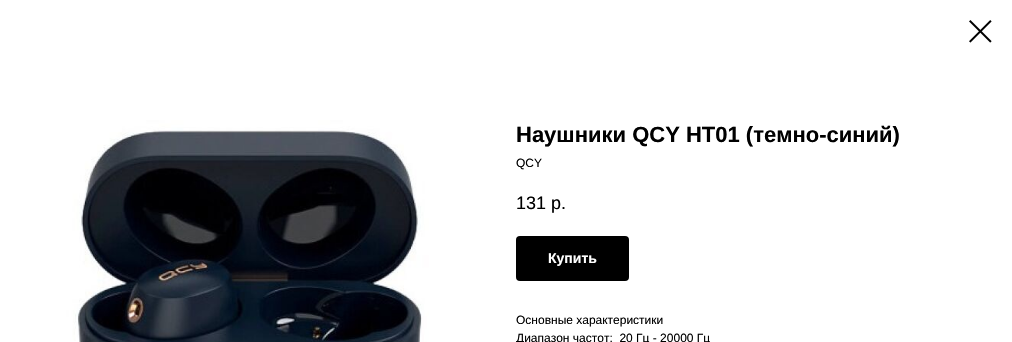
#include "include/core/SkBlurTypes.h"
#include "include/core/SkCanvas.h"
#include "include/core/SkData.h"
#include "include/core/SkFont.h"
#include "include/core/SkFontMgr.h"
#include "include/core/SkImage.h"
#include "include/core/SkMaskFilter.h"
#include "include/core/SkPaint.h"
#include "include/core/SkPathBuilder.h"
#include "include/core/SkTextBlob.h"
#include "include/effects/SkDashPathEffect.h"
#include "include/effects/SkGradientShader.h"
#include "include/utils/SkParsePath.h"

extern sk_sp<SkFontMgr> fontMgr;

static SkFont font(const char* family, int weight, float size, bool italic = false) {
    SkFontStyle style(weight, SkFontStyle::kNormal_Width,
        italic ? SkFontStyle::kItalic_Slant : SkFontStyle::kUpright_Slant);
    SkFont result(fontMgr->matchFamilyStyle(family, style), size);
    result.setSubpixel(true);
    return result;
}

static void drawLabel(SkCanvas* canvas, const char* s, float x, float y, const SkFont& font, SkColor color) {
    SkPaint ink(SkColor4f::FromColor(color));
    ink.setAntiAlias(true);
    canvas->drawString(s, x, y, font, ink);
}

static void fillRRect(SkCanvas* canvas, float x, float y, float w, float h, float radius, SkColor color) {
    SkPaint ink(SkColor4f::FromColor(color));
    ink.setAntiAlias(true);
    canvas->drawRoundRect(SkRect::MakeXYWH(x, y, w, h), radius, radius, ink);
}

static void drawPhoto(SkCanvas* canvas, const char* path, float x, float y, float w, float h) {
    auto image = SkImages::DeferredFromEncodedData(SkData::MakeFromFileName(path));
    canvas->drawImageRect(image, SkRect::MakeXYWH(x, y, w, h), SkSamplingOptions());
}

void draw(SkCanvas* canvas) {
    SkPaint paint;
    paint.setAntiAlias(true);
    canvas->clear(0xFFFFFFFF);
    drawPhoto(canvas, "assets/img1.png", 969, 20, 23, 23);
    drawPhoto(canvas, "assets/img2.png", 36, 120, 460, 222);
    SkFont font1 = font("Liberation Sans", 700, 22);
    drawLabel(canvas, "Наушники QCY HT01 (темно-синий)", 516, 142, font1, 0xFF000000);
    SkFont font2 = font("Liberation Sans", 400, 12);
    drawLabel(canvas, "QCY", 516, 167, font2, 0xFF000000);
    SkFont font3 = font("Liberation Sans", 400, 18);
    drawLabel(canvas, "131 р.", 516, 209, font3, 0xFF000000);
    fillRRect(canvas, 516, 236, 113, 45, 4, 0xFF000000);
    SkFont font4 = font("Liberation Sans", 700, 14);
    drawLabel(canvas, "Купить", 548, 263, font4, 0xFFFFFFFF);
    drawLabel(canvas, "Основные характеристики", 516, 324, font2, 0xFF000000);
    drawLabel(canvas, "Диапазон частот:  20 Гц - 20000 Гц", 516, 342, font2, 0xFF000000);
}
